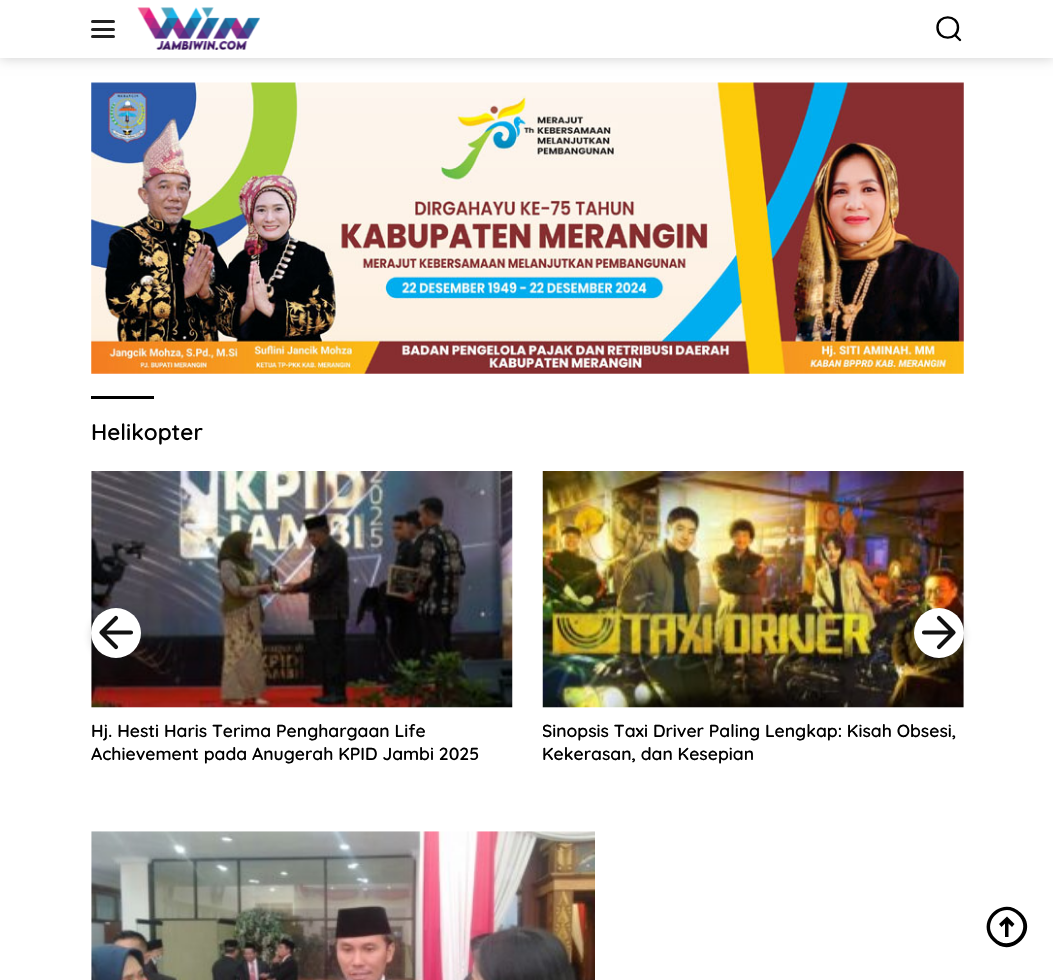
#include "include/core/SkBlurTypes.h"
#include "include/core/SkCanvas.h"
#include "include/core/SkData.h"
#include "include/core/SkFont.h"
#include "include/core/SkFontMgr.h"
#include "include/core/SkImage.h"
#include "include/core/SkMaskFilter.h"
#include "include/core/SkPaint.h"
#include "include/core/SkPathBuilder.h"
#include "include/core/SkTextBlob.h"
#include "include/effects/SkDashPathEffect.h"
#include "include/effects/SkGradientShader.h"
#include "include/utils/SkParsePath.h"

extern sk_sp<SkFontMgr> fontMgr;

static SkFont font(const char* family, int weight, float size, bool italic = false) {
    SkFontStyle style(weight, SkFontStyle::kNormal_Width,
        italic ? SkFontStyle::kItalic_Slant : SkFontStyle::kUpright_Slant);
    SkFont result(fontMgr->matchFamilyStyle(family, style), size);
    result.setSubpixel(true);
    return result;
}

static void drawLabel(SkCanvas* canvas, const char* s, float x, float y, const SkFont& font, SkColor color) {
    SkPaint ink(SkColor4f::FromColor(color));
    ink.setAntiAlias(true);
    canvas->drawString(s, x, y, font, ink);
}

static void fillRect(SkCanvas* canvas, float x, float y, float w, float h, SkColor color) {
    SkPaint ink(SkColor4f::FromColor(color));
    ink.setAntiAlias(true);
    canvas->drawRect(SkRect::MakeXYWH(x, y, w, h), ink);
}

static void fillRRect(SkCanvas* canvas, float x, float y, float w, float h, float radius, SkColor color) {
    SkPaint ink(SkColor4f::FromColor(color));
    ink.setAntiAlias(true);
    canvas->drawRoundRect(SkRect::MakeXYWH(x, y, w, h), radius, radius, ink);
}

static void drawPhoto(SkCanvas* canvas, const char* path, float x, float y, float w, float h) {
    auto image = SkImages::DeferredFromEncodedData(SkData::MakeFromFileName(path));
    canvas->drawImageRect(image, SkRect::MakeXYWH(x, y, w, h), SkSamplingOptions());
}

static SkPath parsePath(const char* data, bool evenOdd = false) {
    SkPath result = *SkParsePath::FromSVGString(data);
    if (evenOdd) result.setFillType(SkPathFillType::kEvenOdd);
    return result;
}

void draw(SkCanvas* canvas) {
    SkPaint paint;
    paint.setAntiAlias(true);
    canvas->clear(0xFFFFFFFF);
    paint.setColor(0x33000000);
    paint.setMaskFilter(SkMaskFilter::MakeBlur(kNormal_SkBlurStyle, 6));
    canvas->drawRect(SkRect::MakeXYWH(0, 0, 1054, 58), paint);
    paint.setMaskFilter(nullptr);
    fillRect(canvas, 0, 0, 1053, 58, 0xFFFFFFFF);
    fillRRect(canvas, 91, 20, 24, 3, 1.5f, 0xFF222222);
    fillRRect(canvas, 91, 28, 24, 3, 1.5f, 0xFF222222);
    fillRRect(canvas, 91, 35, 24, 3, 1.5f, 0xFF222222);
    drawPhoto(canvas, "assets/img1.png", 137, 7, 123, 43);
    paint.setStroke(true);
    paint.setStrokeWidth(2.4f);
    paint.setStrokeCap(SkPaint::kRound_Cap);
    paint.setColor(0xFF000000);
    canvas->drawPath(parsePath("M960 40L955 35M958 27.5C958 41 937.5 41 937.5 27.5C937.5 14 958 14 958 27.5Z"), paint);
    drawPhoto(canvas, "assets/img2.png", 91, 82, 873, 292);
    fillRect(canvas, 91, 396, 63, 3, 0xFF000000);
    SkFont font1 = font("Quicksand", 600, 22.5f);
    drawLabel(canvas, "Helikopter", 91, 440, font1, 0xFF000000);
    drawPhoto(canvas, "assets/img3.png", 91, 471, 422, 237);
    paint.setStroke(false);
    paint.setColor(0x33333333);
    paint.setMaskFilter(SkMaskFilter::MakeBlur(kNormal_SkBlurStyle, 4));
    canvas->drawRoundRect(SkRect::MakeXYWH(91, 611, 50, 50), 25, 25, paint);
    paint.setMaskFilter(nullptr);
    paint.setColor(0xFFFFFFFF);
    canvas->drawCircle(116, 633, 25, paint);
    paint.setStroke(true);
    paint.setStrokeWidth(4.2f);
    paint.setStrokeJoin(SkPaint::kRound_Join);
    paint.setColor(0xFF111111);
    canvas->drawPath(parsePath("M131 632.5H101.5M116 647L101.5 632.5L116 618"), paint);
    drawPhoto(canvas, "assets/img4.png", 542, 471, 422, 237);
    paint.setStroke(false);
    paint.setColor(0x33333333);
    paint.setMaskFilter(SkMaskFilter::MakeBlur(kNormal_SkBlurStyle, 4));
    canvas->drawRoundRect(SkRect::MakeXYWH(914, 611, 50, 50), 25, 25, paint);
    paint.setMaskFilter(nullptr);
    paint.setColor(0xFFFFFFFF);
    canvas->drawCircle(939, 633, 25, paint);
    paint.setStroke(true);
    paint.setColor(0xFF111111);
    canvas->drawPath(parsePath("M924 632.5H953.5M939 618L953.5 632.5L939 647"), paint);
    SkFont font2 = font("Quicksand", 600, 17.5f);
    drawLabel(canvas, "Hj. Hesti Haris Terima Penghargaan Life", 91, 737, font2, 0xFF000000);
    drawLabel(canvas, "Achievement pada Anugerah KPID Jambi 2025", 91, 760, font2, 0xFF000000);
    canvas->save();
    canvas->clipRect(SkRect::MakeXYWH(543, 720, 421, 45));
    drawLabel(canvas, "Sinopsis Taxi Driver Paling Lengkap: Kisah Obsesi,", 542, 737, font2, 0xFF000000);
    canvas->restore();
    drawLabel(canvas, "Kekerasan, dan Kesepian", 542, 760, font2, 0xFF000000);
    drawPhoto(canvas, "assets/img5.png", 91, 831, 504, 149);
    paint.setStroke(false);
    paint.setColor(0xFF000000);
    canvas->drawPath(parsePath("M1012 927L1014.5 924L1007 916.5L999 924L1001.5 927L1005 923.5V937H1008.5V923.5Z"), paint);
    canvas->drawPath(parsePath("M1021 913C1002 894 974 922 993 941C1011 960 1040 931 1021 913ZM1018 915C1003 900 980 923 995 938C1010 954 1034 930 1018 915Z", true), paint);
}
